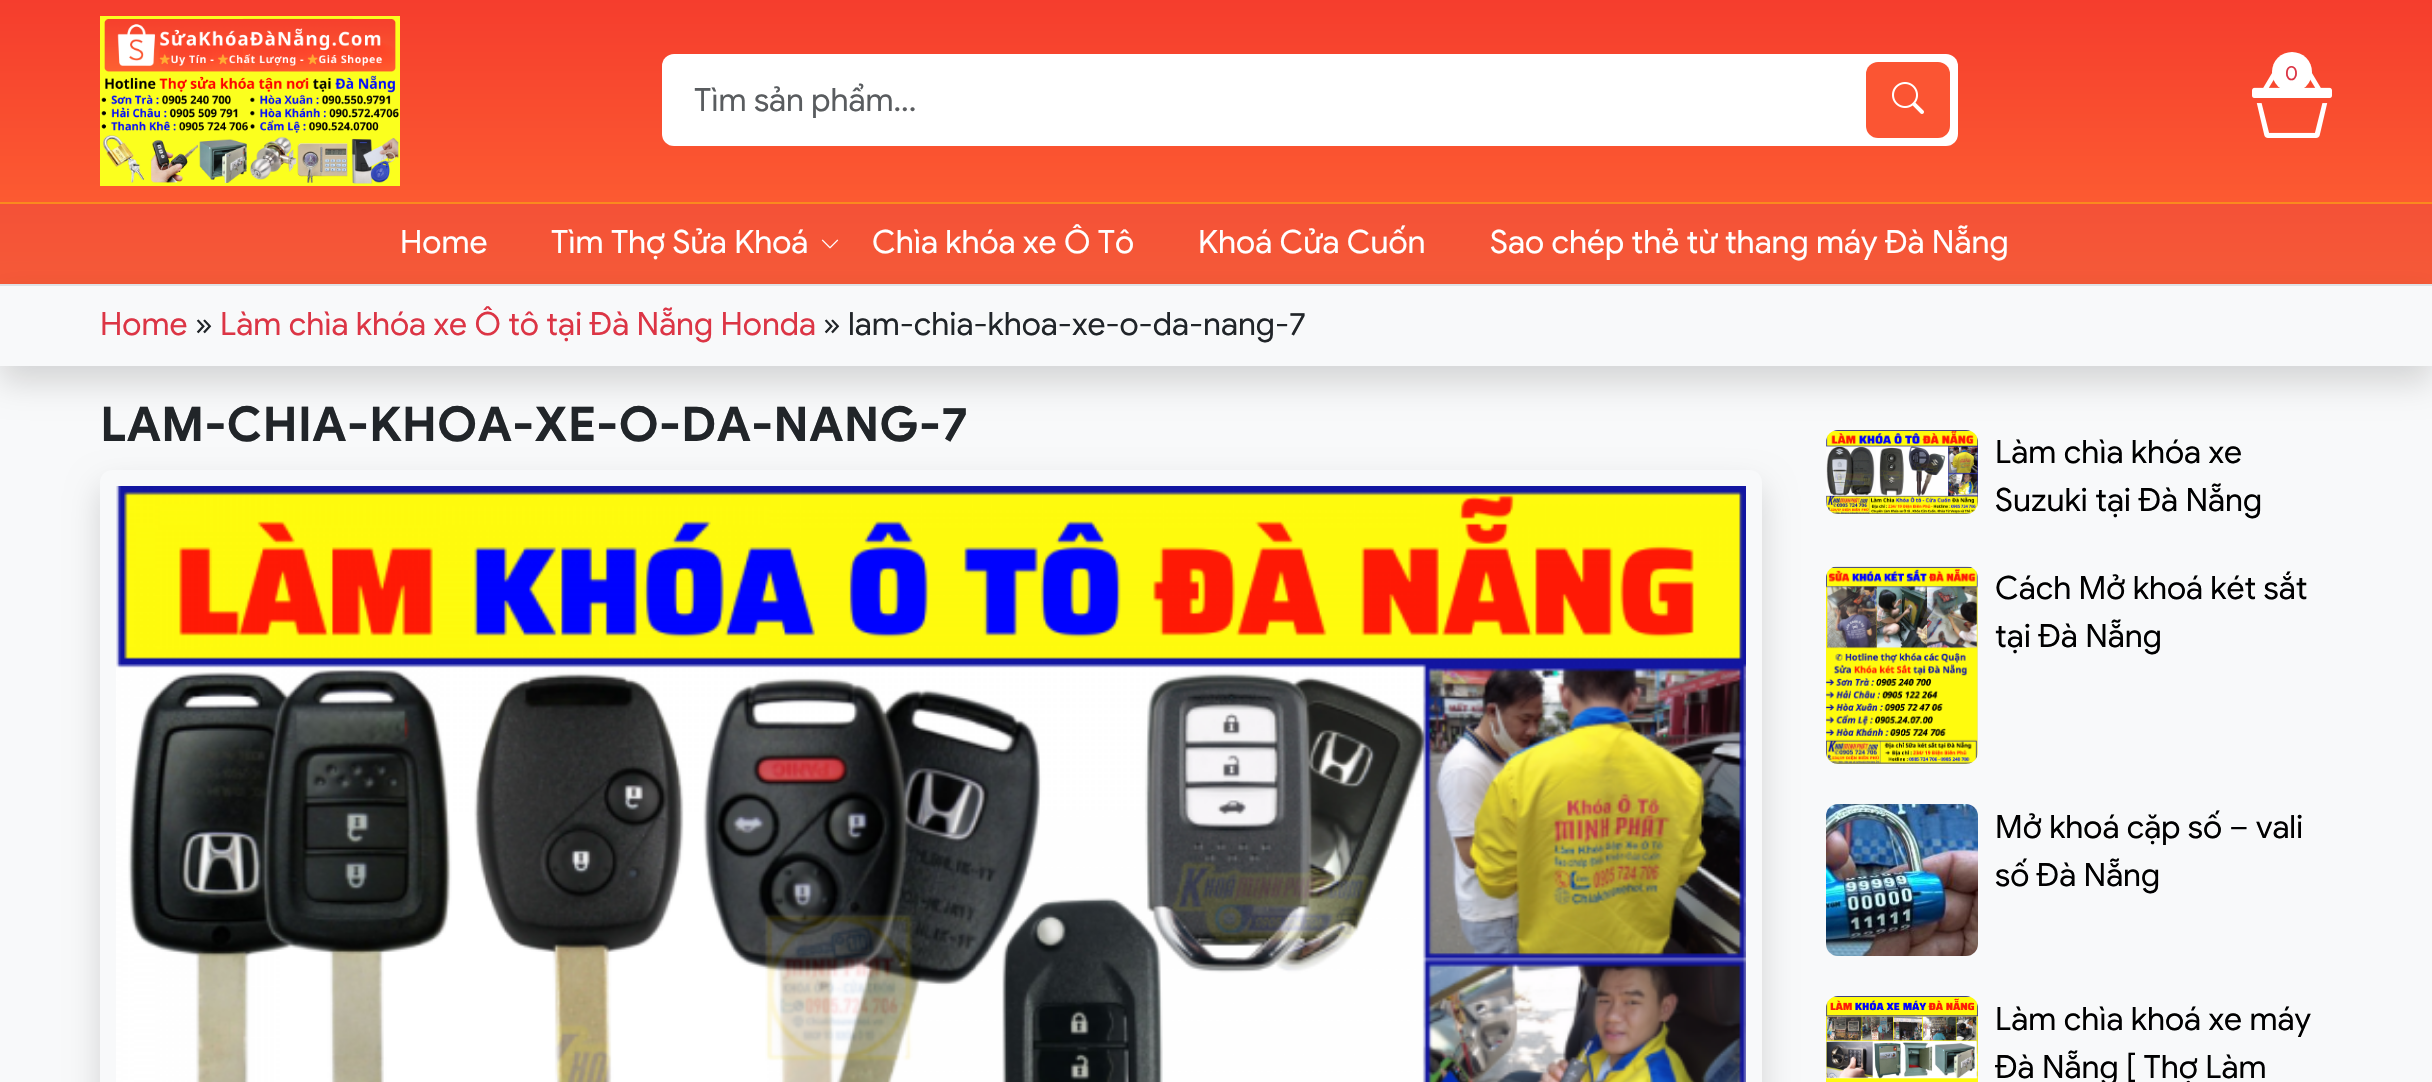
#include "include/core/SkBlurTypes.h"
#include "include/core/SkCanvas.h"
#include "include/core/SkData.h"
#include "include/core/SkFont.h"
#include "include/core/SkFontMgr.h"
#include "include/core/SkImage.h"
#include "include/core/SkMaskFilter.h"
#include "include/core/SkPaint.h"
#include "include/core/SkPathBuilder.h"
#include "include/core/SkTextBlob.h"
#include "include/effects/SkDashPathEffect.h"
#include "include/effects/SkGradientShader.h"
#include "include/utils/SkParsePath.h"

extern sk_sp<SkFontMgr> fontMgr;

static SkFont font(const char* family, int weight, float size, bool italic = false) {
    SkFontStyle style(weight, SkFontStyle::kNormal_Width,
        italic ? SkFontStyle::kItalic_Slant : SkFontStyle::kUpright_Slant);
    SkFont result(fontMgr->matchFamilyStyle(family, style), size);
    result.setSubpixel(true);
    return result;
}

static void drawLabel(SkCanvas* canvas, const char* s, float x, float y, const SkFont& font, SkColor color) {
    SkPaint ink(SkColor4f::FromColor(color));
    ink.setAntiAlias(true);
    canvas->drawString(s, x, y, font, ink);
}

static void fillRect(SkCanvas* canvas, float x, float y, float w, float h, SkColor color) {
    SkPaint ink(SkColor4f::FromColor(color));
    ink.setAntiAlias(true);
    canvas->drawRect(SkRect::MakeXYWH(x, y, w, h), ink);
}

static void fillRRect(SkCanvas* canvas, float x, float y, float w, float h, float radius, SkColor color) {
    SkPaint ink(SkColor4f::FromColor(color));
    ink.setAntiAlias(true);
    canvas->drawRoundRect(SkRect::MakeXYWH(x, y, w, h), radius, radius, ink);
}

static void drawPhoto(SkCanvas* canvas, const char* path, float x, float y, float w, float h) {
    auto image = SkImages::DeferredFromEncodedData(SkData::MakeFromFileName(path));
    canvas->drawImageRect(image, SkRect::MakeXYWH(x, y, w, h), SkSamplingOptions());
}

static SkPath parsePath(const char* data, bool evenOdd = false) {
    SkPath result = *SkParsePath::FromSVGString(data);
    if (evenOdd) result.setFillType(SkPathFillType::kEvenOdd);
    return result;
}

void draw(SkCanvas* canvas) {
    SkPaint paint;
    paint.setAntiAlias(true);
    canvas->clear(0xFFF8F9FA);
    {
        const SkColor colors[] = {0xFFF53D2D, 0xFFFF6633};
        const float stops[] = {0, 1};
        const SkPoint ends[] = {{1216, 0}, {1216, 284}};
        paint.setShader(SkGradientShader::MakeLinear(ends, colors, stops, 2, SkTileMode::kClamp));
        paint.setAlpha(255);
    }
    canvas->drawRect(SkRect::MakeXYWH(0, 0, 2432, 202), paint);
    {
        const SkColor colors[] = {0xFFEF3B33, 0xFFF65A38};
        const float stops[] = {0, 1};
        const SkPoint ends[] = {{1216, 0}, {1216, 284}};
        paint.setShader(SkGradientShader::MakeLinear(ends, colors, stops, 2, SkTileMode::kClamp));
        paint.setAlpha(255);
    }
    canvas->drawRect(SkRect::MakeXYWH(0, 204, 2432, 80), paint);
    drawPhoto(canvas, "assets/img1.png", 100, 16, 300, 170);
    drawPhoto(canvas, "assets/img2.png", 2252, 71, 80, 67);
    paint.setShader(nullptr);
    paint.setColor(0xFFFFFFFF);
    canvas->drawCircle(2292, 72, 20, paint);
    SkFont font1 = font("Google Sans", 400, 20);
    drawLabel(canvas, "0", 2285, 80, font1, 0xFFDC3545);
    fillRRect(canvas, 662, 54, 1296, 92, 12, 0xFFFFFFFF);
    SkFont font2 = font("Google Sans", 400, 32);
    drawLabel(canvas, "Tìm sản phẩm...", 694, 111, font2, 0xFF595C5F);
    fillRRect(canvas, 1866, 62, 84, 76, 12, 0xFFFB5533);
    drawPhoto(canvas, "assets/img3.png", 1892, 82, 32, 32);
    fillRect(canvas, 0, 202, 2432, 2, 0xFFFA891F);
    canvas->save();
    canvas->clipPath(parsePath("M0 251H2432V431H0ZM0 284H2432V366H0Z", true), true);
    paint.setColor(0x26000000);
    paint.setMaskFilter(SkMaskFilter::MakeBlur(kNormal_SkBlurStyle, 16));
    canvas->drawRect(SkRect::MakeXYWH(0, 300, 2432, 82), paint);
    paint.setMaskFilter(nullptr);
    canvas->restore();
    drawLabel(canvas, "Home", 400, 253, font2, 0xFFFFFFFF);
    drawLabel(canvas, "Tìm Thợ Sửa Khoá", 551, 253, font2, 0xFFFFFFFF);
    drawPhoto(canvas, "assets/img4.png", 821, 239, 18, 10);
    drawLabel(canvas, "Chìa khóa xe Ô Tô", 872, 253, font2, 0xFFFFFFFF);
    drawLabel(canvas, "Khoá Cửa Cuốn", 1198, 253, font2, 0xFFFFFFFF);
    drawLabel(canvas, "Sao chép thẻ từ thang máy Đà Nẵng", 1490, 253, font2, 0xFFFFFFFF);
    fillRect(canvas, 0, 284, 2432, 2, 0xFFDEE2E6);
    drawLabel(canvas, "Home", 100, 335, font2, 0xFFDC3545);
    drawLabel(canvas, "»", 195, 335, font2, 0xFF212529);
    drawLabel(canvas, "Làm chìa khóa xe Ô tô tại Đà Nẵng Honda", 220, 335, font2, 0xFFDC3545);
    drawLabel(canvas, "» lam-chia-khoa-xe-o-da-nang-7", 823, 335, font2, 0xFF212529);
    canvas->save();
    canvas->clipPath(parsePath("M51 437H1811V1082H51ZM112 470H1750C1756.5 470 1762 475.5 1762 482V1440C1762 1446.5 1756.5 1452 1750 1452H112C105.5 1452 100 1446.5 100 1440V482C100 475.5 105.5 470 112 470Z", true), true);
    paint.setMaskFilter(SkMaskFilter::MakeBlur(kNormal_SkBlurStyle, 16));
    canvas->drawRoundRect(SkRect::MakeXYWH(100, 486, 1662, 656), 12, 12, paint);
    paint.setMaskFilter(nullptr);
    canvas->restore();
    SkFont font3 = font("Google Sans", 700, 48);
    drawLabel(canvas, "LAM-CHIA-KHOA-XE-O-DA-NANG-7", 100, 441, font3, 0xFF212529);
    drawPhoto(canvas, "assets/img5.png", 116, 486, 1630, 596);
    drawPhoto(canvas, "assets/img6.png", 1826, 430, 152, 84);
    drawLabel(canvas, "Làm chìa khóa xe", 1995, 463, font2, 0xFF000000);
    drawLabel(canvas, "Suzuki tại Đà Nẵng", 1995, 511, font2, 0xFF000000);
    drawPhoto(canvas, "assets/img7.png", 1826, 566, 152, 198);
    drawLabel(canvas, "Cách Mở khoá két sắt", 1995, 599, font2, 0xFF000000);
    drawLabel(canvas, "tại Đà Nẵng", 1995, 647, font2, 0xFF000000);
    drawPhoto(canvas, "assets/img8.png", 1826, 804, 152, 152);
    drawLabel(canvas, "Mở khoá cặp số – vali", 1995, 838, font2, 0xFF000000);
    drawLabel(canvas, "số Đà Nẵng", 1995, 886, font2, 0xFF000000);
    drawPhoto(canvas, "assets/img9.png", 1826, 996, 152, 86);
    drawLabel(canvas, "Làm chìa khoá xe máy", 1995, 1030, font2, 0xFF000000);
    drawLabel(canvas, "Đà Nẵng [ Thợ Làm", 1995, 1078, font2, 0xFF000000);
}
